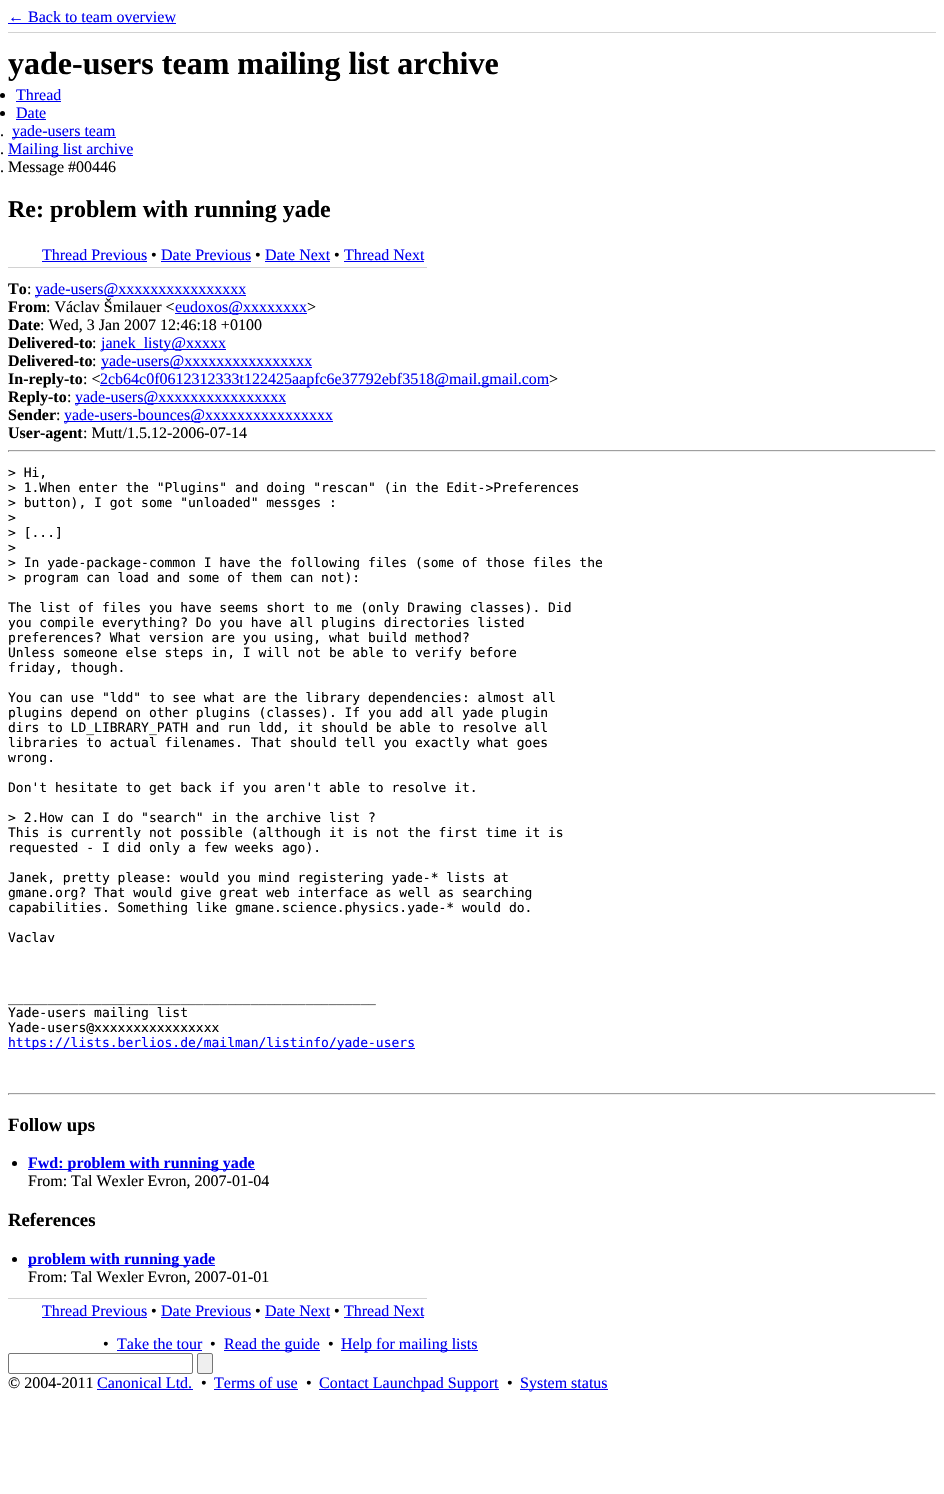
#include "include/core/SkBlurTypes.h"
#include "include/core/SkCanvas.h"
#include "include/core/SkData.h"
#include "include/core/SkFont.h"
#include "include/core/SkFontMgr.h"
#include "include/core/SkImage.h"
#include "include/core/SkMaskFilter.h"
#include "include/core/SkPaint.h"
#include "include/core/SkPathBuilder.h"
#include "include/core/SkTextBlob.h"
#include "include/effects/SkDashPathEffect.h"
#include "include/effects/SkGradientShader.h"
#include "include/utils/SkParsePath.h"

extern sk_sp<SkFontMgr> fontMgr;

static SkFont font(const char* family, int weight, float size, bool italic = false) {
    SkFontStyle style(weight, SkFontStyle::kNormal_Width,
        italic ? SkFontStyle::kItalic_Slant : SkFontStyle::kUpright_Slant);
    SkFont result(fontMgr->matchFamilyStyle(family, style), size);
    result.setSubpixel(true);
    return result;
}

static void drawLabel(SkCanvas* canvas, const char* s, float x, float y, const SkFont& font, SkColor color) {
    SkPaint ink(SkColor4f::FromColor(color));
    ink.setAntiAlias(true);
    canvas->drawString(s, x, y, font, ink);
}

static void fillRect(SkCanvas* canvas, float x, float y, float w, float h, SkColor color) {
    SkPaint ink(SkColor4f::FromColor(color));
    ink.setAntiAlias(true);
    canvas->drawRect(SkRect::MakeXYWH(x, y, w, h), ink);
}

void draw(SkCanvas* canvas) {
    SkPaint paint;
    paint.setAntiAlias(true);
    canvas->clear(0xFFFFFFFF);
    fillRect(canvas, 8, 32, 928, 1, 0xFFD2D2D2);
    SkFont font1 = font("Liberation Serif", 400, 16);
    drawLabel(canvas, "← Back to team overview", 8, 22, font1, 0xFF0000EE);
    fillRect(canvas, 8, 23, 168, 1, 0xFF0000EE);
    SkFont font2 = font("Liberation Serif", 700, 32);
    drawLabel(canvas, "yade-users team mailing list archive", 8, 74, font2, 0xFF000000);
    paint.setColor(0xFF000000);
    canvas->drawCircle(2.5f, 95.5f, 2.5f, paint);
    drawLabel(canvas, "Thread", 16, 100, font1, 0xFF0000EE);
    fillRect(canvas, 16, 101, 45, 1, 0xFF0000EE);
    canvas->drawCircle(2.5f, 113.5f, 2.5f, paint);
    drawLabel(canvas, "Date", 16, 118, font1, 0xFF0000EE);
    fillRect(canvas, 16, 119, 30, 1, 0xFF0000EE);
    drawLabel(canvas, ".", 0, 136, font1, 0xFF000000);
    fillRect(canvas, 12, 137, 104, 1, 0xFF0000EE);
    drawLabel(canvas, "yade-users team", 12, 136, font1, 0xFF0000EE);
    drawLabel(canvas, ".", 0, 154, font1, 0xFF000000);
    fillRect(canvas, 8, 155, 125, 1, 0xFF0000EE);
    drawLabel(canvas, "Mailing list archive", 8, 154, font1, 0xFF0000EE);
    drawLabel(canvas, ". Message #00446", 0, 172, font1, 0xFF000000);
    SkFont font3 = font("Liberation Serif", 700, 24);
    drawLabel(canvas, "Re: problem with running yade", 8, 217, font3, 0xFF000000);
    fillRect(canvas, 8, 267, 419, 1, 0xFFD2D2D2);
    drawLabel(canvas, "Thread Previous", 42, 260, font1, 0xFF0000EE);
    fillRect(canvas, 42, 261, 105, 1, 0xFF0000EE);
    drawLabel(canvas, "•", 151, 260, font1, 0xFF000000);
    drawLabel(canvas, "Date Previous", 161, 260, font1, 0xFF0000EE);
    fillRect(canvas, 161, 261, 90, 1, 0xFF0000EE);
    drawLabel(canvas, "•", 255, 260, font1, 0xFF000000);
    drawLabel(canvas, "Date Next", 265, 260, font1, 0xFF0000EE);
    fillRect(canvas, 265, 261, 65, 1, 0xFF0000EE);
    drawLabel(canvas, "•", 334, 260, font1, 0xFF000000);
    drawLabel(canvas, "Thread Next", 344, 260, font1, 0xFF0000EE);
    fillRect(canvas, 344, 261, 80, 1, 0xFF0000EE);
    SkFont font4 = font("Liberation Serif", 700, 16);
    drawLabel(canvas, "To", 8, 294, font4, 0xFF000000);
    drawLabel(canvas, ":", 27, 294, font1, 0xFF000000);
    fillRect(canvas, 35, 295, 211, 1, 0xFF0000EE);
    drawLabel(canvas, "yade-users@xxxxxxxxxxxxxxxx", 35, 294, font1, 0xFF0000EE);
    drawLabel(canvas, "From", 8, 312, font4, 0xFF000000);
    drawLabel(canvas, ": Václav Šmilauer <", 46, 312, font1, 0xFF000000);
    fillRect(canvas, 175, 313, 132, 1, 0xFF0000EE);
    drawLabel(canvas, "eudoxos@xxxxxxxx", 175, 312, font1, 0xFF0000EE);
    drawLabel(canvas, ">", 307, 312, font1, 0xFF000000);
    drawLabel(canvas, "Date", 8, 330, font4, 0xFF000000);
    drawLabel(canvas, ": Wed, 3 Jan 2007 12:46:18 +0100", 40, 330, font1, 0xFF000000);
    drawLabel(canvas, "Delivered-to", 8, 348, font4, 0xFF000000);
    drawLabel(canvas, ":", 92, 348, font1, 0xFF000000);
    fillRect(canvas, 101, 349, 125, 1, 0xFF0000EE);
    drawLabel(canvas, "janek_listy@xxxxx", 101, 348, font1, 0xFF0000EE);
    drawLabel(canvas, "Delivered-to", 8, 366, font4, 0xFF000000);
    drawLabel(canvas, ":", 92, 366, font1, 0xFF000000);
    fillRect(canvas, 101, 367, 211, 1, 0xFF0000EE);
    drawLabel(canvas, "yade-users@xxxxxxxxxxxxxxxx", 101, 366, font1, 0xFF0000EE);
    drawLabel(canvas, "In-reply-to", 8, 384, font4, 0xFF000000);
    drawLabel(canvas, ": <", 83, 384, font1, 0xFF000000);
    fillRect(canvas, 100, 385, 449, 1, 0xFF0000EE);
    drawLabel(canvas, "2cb64c0f0612312333t122425aapfc6e37792ebf3518@mail.gmail.com", 100, 384, font1, 0xFF0000EE);
    drawLabel(canvas, ">", 549, 384, font1, 0xFF000000);
    drawLabel(canvas, "Reply-to", 8, 402, font4, 0xFF000000);
    drawLabel(canvas, ":", 67, 402, font1, 0xFF000000);
    fillRect(canvas, 75, 403, 211, 1, 0xFF0000EE);
    drawLabel(canvas, "yade-users@xxxxxxxxxxxxxxxx", 75, 402, font1, 0xFF0000EE);
    drawLabel(canvas, "Sender", 8, 420, font4, 0xFF000000);
    drawLabel(canvas, ":", 56, 420, font1, 0xFF000000);
    fillRect(canvas, 64, 421, 269, 1, 0xFF0000EE);
    drawLabel(canvas, "yade-users-bounces@xxxxxxxxxxxxxxxx", 64, 420, font1, 0xFF0000EE);
    drawLabel(canvas, "User-agent", 8, 438, font4, 0xFF000000);
    drawLabel(canvas, ": Mutt/1.5.12-2006-07-14", 83, 438, font1, 0xFF000000);
    fillRect(canvas, 8, 450, 928, 1, 0xFF9F9F9F);
    fillRect(canvas, 935, 450, 1, 2, 0xFFEEEEEE);
    fillRect(canvas, 8, 451, 928, 1, 0xFFEEEEEE);
    fillRect(canvas, 8, 450, 1, 2, 0xFF9F9F9F);
    SkFont font5 = font("DejaVu Sans Mono", 400, 13);
    drawLabel(canvas, "> Hi,", 8, 477, font5, 0xFF000000);
    drawLabel(canvas, "> 1.When enter the \"Plugins\" and doing \"rescan\" (in the Edit->Preferences", 8, 492, font5, 0xFF000000);
    drawLabel(canvas, "> button), I got some \"unloaded\" messges :", 8, 507, font5, 0xFF000000);
    drawLabel(canvas, ">", 8, 522, font5, 0xFF000000);
    drawLabel(canvas, "> [...]", 8, 537, font5, 0xFF000000);
    drawLabel(canvas, ">", 8, 552, font5, 0xFF000000);
    drawLabel(canvas, "> In yade-package-common I have the following files (some of those files the", 8, 567, font5, 0xFF000000);
    drawLabel(canvas, "> program can load and some of them can not):", 8, 582, font5, 0xFF000000);
    drawLabel(canvas, "The list of files you have seems short to me (only Drawing classes). Did", 8, 612, font5, 0xFF000000);
    drawLabel(canvas, "you compile everything? Do you have all plugins directories listed", 8, 627, font5, 0xFF000000);
    drawLabel(canvas, "preferences? What version are you using, what build method?", 8, 642, font5, 0xFF000000);
    drawLabel(canvas, "Unless someone else steps in, I will not be able to verify before", 8, 657, font5, 0xFF000000);
    drawLabel(canvas, "friday, though.", 8, 672, font5, 0xFF000000);
    drawLabel(canvas, "You can use \"ldd\" to see what are the library dependencies: almost all", 8, 702, font5, 0xFF000000);
    drawLabel(canvas, "plugins depend on other plugins (classes). If you add all yade plugin", 8, 717, font5, 0xFF000000);
    drawLabel(canvas, "dirs to LD_LIBRARY_PATH and run ldd, it should be able to resolve all", 8, 732, font5, 0xFF000000);
    drawLabel(canvas, "libraries to actual filenames. That should tell you exactly what goes", 8, 747, font5, 0xFF000000);
    drawLabel(canvas, "wrong.", 8, 762, font5, 0xFF000000);
    drawLabel(canvas, "Don't hesitate to get back if you aren't able to resolve it.", 8, 792, font5, 0xFF000000);
    drawLabel(canvas, "> 2.How can I do \"search\" in the archive list ?", 8, 822, font5, 0xFF000000);
    drawLabel(canvas, "This is currently not possible (although it is not the first time it is", 8, 837, font5, 0xFF000000);
    drawLabel(canvas, "requested - I did only a few weeks ago).", 8, 852, font5, 0xFF000000);
    drawLabel(canvas, "Janek, pretty please: would you mind registering yade-* lists at", 8, 882, font5, 0xFF000000);
    drawLabel(canvas, "gmane.org? That would give great web interface as well as searching", 8, 897, font5, 0xFF000000);
    drawLabel(canvas, "capabilities. Something like gmane.science.physics.yade-* would do.", 8, 912, font5, 0xFF000000);
    drawLabel(canvas, "Vaclav", 8, 942, font5, 0xFF000000);
    drawLabel(canvas, "_______________________________________________", 8, 1002, font5, 0xFF000000);
    drawLabel(canvas, "Yade-users mailing list", 8, 1017, font5, 0xFF000000);
    drawLabel(canvas, "Yade-users@xxxxxxxxxxxxxxxx", 8, 1032, font5, 0xFF000000);
    fillRect(canvas, 8, 1048, 407, 1, 0xFF0000EE);
    drawLabel(canvas, "https://lists.berlios.de/mailman/listinfo/yade-users", 8, 1047, font5, 0xFF0000EE);
    fillRect(canvas, 8, 1093, 928, 1, 0xFF9F9F9F);
    fillRect(canvas, 935, 1093, 1, 2, 0xFFEEEEEE);
    fillRect(canvas, 8, 1094, 928, 1, 0xFFEEEEEE);
    fillRect(canvas, 8, 1093, 1, 2, 0xFF9F9F9F);
    SkFont font6 = font("Liberation Serif", 700, 18.75f);
    drawLabel(canvas, "Follow ups", 8, 1131, font6, 0xFF000000);
    canvas->drawCircle(14.5f, 1163.5f, 2.5f, paint);
    fillRect(canvas, 28, 1169, 227, 1, 0xFF0000EE);
    drawLabel(canvas, "Fwd: problem with running yade", 28, 1168, font4, 0xFF0000EE);
    drawLabel(canvas, "From: Tal Wexler Evron, 2007-01-04", 28, 1186, font1, 0xFF000000);
    drawLabel(canvas, "References", 8, 1226, font6, 0xFF000000);
    canvas->drawCircle(14.5f, 1259.5f, 2.5f, paint);
    fillRect(canvas, 28, 1265, 187, 1, 0xFF0000EE);
    drawLabel(canvas, "problem with running yade", 28, 1264, font4, 0xFF0000EE);
    drawLabel(canvas, "From: Tal Wexler Evron, 2007-01-01", 28, 1282, font1, 0xFF000000);
    fillRect(canvas, 8, 1298, 419, 1, 0xFFD2D2D2);
    drawLabel(canvas, "Thread Previous", 42, 1316, font1, 0xFF0000EE);
    fillRect(canvas, 42, 1317, 105, 1, 0xFF0000EE);
    drawLabel(canvas, "•", 151, 1316, font1, 0xFF000000);
    drawLabel(canvas, "Date Previous", 161, 1316, font1, 0xFF0000EE);
    fillRect(canvas, 161, 1317, 90, 1, 0xFF0000EE);
    drawLabel(canvas, "•", 255, 1316, font1, 0xFF000000);
    drawLabel(canvas, "Date Next", 265, 1316, font1, 0xFF0000EE);
    fillRect(canvas, 265, 1317, 65, 1, 0xFF0000EE);
    drawLabel(canvas, "•", 334, 1316, font1, 0xFF000000);
    drawLabel(canvas, "Thread Next", 344, 1316, font1, 0xFF0000EE);
    fillRect(canvas, 344, 1317, 80, 1, 0xFF0000EE);
    drawLabel(canvas, "•", 103, 1349, font1, 0xFF000000);
    drawLabel(canvas, "Take the tour", 117, 1349, font1, 0xFF0000EE);
    fillRect(canvas, 117, 1350, 85, 1, 0xFF0000EE);
    drawLabel(canvas, "•", 210, 1349, font1, 0xFF000000);
    fillRect(canvas, 224, 1350, 96, 1, 0xFF0000EE);
    drawLabel(canvas, "Read the guide", 224, 1349, font1, 0xFF0000EE);
    drawLabel(canvas, "•", 328, 1349, font1, 0xFF000000);
    fillRect(canvas, 341, 1350, 137, 1, 0xFF0000EE);
    drawLabel(canvas, "Help for mailing lists", 341, 1349, font1, 0xFF0000EE);
    paint.setStroke(true);
    paint.setStrokeWidth(1);
    paint.setColor(0xFF767676);
    canvas->drawRoundRect(SkRect::MakeXYWH(8.5f, 1353.5f, 184, 20), 1.5f, 1.5f, paint);
    paint.setStroke(false);
    paint.setColor(0xFFEFEFEF);
    canvas->drawRoundRect(SkRect::MakeXYWH(197.5f, 1353.5f, 15, 20), 1.5f, 1.5f, paint);
    paint.setStroke(true);
    paint.setColor(0xFF767676);
    canvas->drawRoundRect(SkRect::MakeXYWH(197.5f, 1353.5f, 15, 20), 1.5f, 1.5f, paint);
    drawLabel(canvas, "© 2004-2011", 8, 1388, font1, 0xFF000000);
    drawLabel(canvas, "Canonical Ltd.", 97, 1388, font1, 0xFF0000EE);
    fillRect(canvas, 97, 1389, 96, 1, 0xFF0000EE);
    drawLabel(canvas, "•", 201, 1388, font1, 0xFF000000);
    drawLabel(canvas, "Terms of use", 214, 1388, font1, 0xFF0000EE);
    fillRect(canvas, 214, 1389, 84, 1, 0xFF0000EE);
    drawLabel(canvas, "•", 306, 1388, font1, 0xFF000000);
    fillRect(canvas, 319, 1389, 180, 1, 0xFF0000EE);
    drawLabel(canvas, "Contact Launchpad Support", 319, 1388, font1, 0xFF0000EE);
    drawLabel(canvas, "•", 507, 1388, font1, 0xFF000000);
    fillRect(canvas, 520, 1389, 88, 1, 0xFF0000EE);
    drawLabel(canvas, "System status", 520, 1388, font1, 0xFF0000EE);
}
